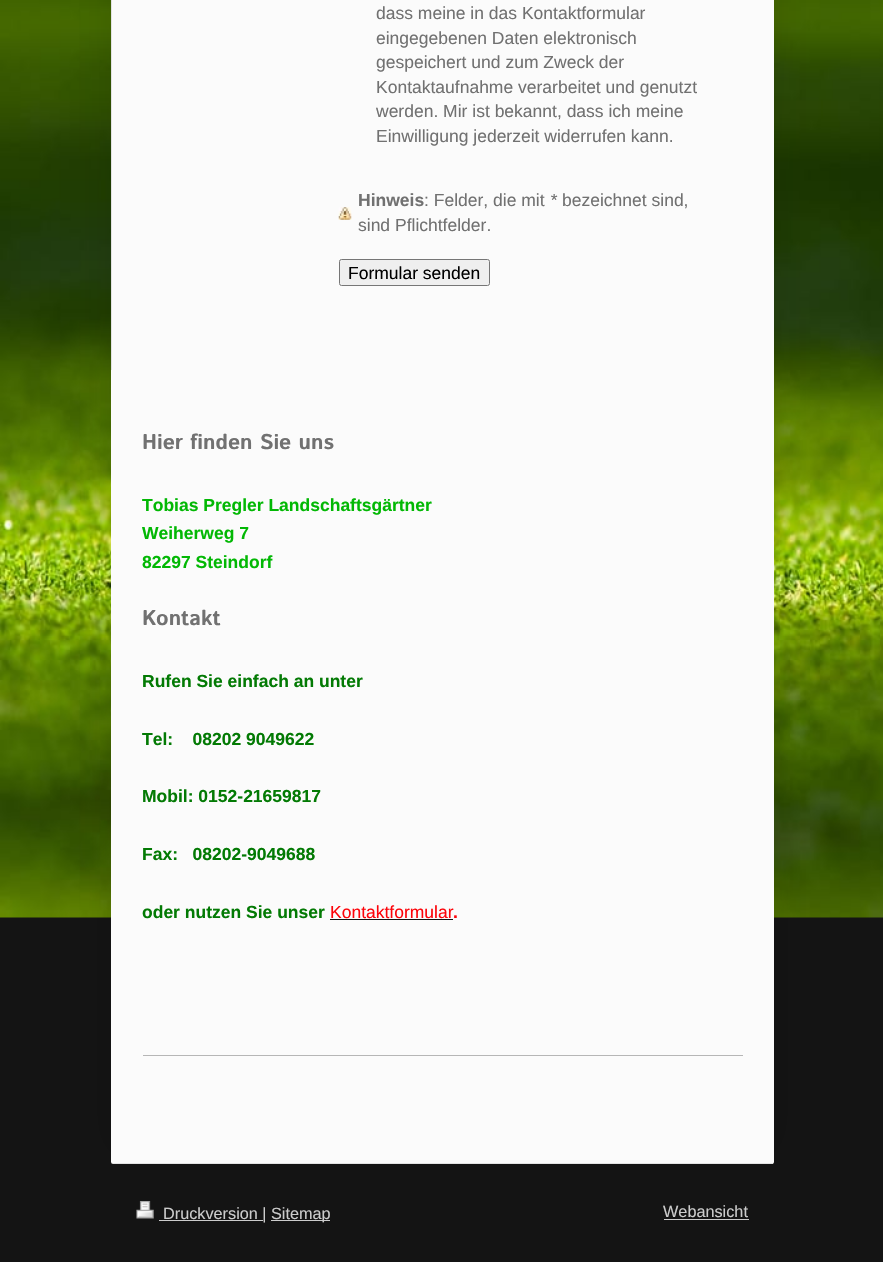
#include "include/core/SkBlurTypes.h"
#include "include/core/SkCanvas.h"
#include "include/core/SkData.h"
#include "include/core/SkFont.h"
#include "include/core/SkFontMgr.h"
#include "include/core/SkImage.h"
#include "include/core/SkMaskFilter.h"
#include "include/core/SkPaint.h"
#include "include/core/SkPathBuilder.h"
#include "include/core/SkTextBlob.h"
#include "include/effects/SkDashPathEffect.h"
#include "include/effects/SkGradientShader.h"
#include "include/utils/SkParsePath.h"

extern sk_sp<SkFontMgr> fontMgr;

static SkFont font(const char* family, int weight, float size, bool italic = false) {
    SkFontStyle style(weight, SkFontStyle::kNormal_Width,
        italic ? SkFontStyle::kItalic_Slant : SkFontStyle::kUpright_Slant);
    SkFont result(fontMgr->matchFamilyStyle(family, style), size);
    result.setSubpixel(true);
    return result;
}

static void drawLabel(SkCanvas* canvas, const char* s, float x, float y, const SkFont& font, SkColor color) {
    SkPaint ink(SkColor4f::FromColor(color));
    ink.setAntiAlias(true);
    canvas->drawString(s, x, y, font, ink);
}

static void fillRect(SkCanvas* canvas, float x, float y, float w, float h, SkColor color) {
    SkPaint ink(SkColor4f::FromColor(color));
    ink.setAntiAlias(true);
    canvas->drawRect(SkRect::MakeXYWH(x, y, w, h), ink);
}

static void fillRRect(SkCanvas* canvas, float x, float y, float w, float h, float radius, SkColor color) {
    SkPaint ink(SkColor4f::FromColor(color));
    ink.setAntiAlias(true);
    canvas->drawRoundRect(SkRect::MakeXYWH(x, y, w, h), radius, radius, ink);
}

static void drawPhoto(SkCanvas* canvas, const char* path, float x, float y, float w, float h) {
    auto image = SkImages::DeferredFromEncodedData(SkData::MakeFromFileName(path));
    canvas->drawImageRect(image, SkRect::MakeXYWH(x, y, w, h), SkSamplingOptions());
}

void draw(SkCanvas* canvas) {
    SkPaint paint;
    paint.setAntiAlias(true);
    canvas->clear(0xFF141414);
    drawPhoto(canvas, "assets/img1.png", 0, 0, 883, 918);
    paint.setColor(0x1A000000);
    paint.setMaskFilter(SkMaskFilter::MakeBlur(kNormal_SkBlurStyle, 19));
    canvas->drawRoundRect(SkRect::MakeXYWH(111, -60, 663, 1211), 2.5f, 2.5f, paint);
    paint.setMaskFilter(nullptr);
    fillRRect(canvas, 111, -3, 663, 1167, 2.5f, 0xFFFBFBFB);
    fillRect(canvas, 113, 1163, 660, 1, 0xFFE2E2E2);
    fillRect(canvas, 111, 0, 1, 370, 0xFFE2E2E2);
    SkFont font1 = font("Liberation Sans", 400, 17.5f);
    drawLabel(canvas, "dass meine in das Kontaktformular", 376, 19, font1, 0xFF717171);
    drawLabel(canvas, "eingegebenen Daten elektronisch", 376, 44, font1, 0xFF717171);
    drawLabel(canvas, "gespeichert und zum Zweck der", 376, 68, font1, 0xFF717171);
    drawLabel(canvas, "Kontaktaufnahme verarbeitet und genutzt", 376, 93, font1, 0xFF717171);
    drawLabel(canvas, "werden. Mir ist bekannt, dass ich meine", 376, 117, font1, 0xFF717171);
    drawLabel(canvas, "Einwilligung jederzeit widerrufen kann.", 376, 142, font1, 0xFF717171);
    drawPhoto(canvas, "assets/img2.png", 338, 207, 14, 13);
    SkFont font2 = font("Liberation Sans", 700, 17.5f);
    drawLabel(canvas, "Hinweis", 358, 206, font2, 0xFF717171);
    drawLabel(canvas, ": Felder, die mit", 424, 206, font1, 0xFF717171);
    SkFont font3 = font("Liberation Sans", 400, 17.5f, true);
    drawLabel(canvas, "*", 550, 206, font3, 0xFF717171);
    drawLabel(canvas, "bezeichnet sind,", 562, 206, font1, 0xFF717171);
    drawLabel(canvas, "sind Pflichtfelder.", 358, 231, font1, 0xFF717171);
    paint.setColor(0xFFEFEFEF);
    canvas->drawRoundRect(SkRect::MakeXYWH(339.5f, 259.5f, 150, 26), 2, 2, paint);
    paint.setStroke(true);
    paint.setStrokeWidth(1);
    paint.setColor(0xFF767676);
    canvas->drawRoundRect(SkRect::MakeXYWH(339.5f, 259.5f, 150, 26), 2, 2, paint);
    drawLabel(canvas, "Formular senden", 348, 279, font1, 0xFF000000);
    SkFont font4 = font("Istok Web", 700, 21.25f);
    drawLabel(canvas, "Hier finden Sie uns", 142, 449, font4, 0xFF717171);
    drawLabel(canvas, "Tobias Pregler Landschaftsgärtner", 142, 511, font2, 0xFF02B804);
    drawLabel(canvas, "Weiherweg 7", 142, 539, font2, 0xFF02B804);
    drawLabel(canvas, "82297 Steindorf", 142, 568, font2, 0xFF02B804);
    drawLabel(canvas, "Kontakt", 142, 625, font4, 0xFF717171);
    drawLabel(canvas, "Rufen Sie einfach an unter", 142, 687, font2, 0xFF037A04);
    drawLabel(canvas, "Tel:    08202 9049622", 142, 745, font2, 0xFF037A04);
    drawLabel(canvas, "Mobil: 0152-21659817", 142, 802, font2, 0xFF037A04);
    drawLabel(canvas, "Fax:   08202-9049688", 142, 860, font2, 0xFF037A04);
    drawLabel(canvas, "oder nutzen Sie unser", 142, 918, font2, 0xFF037A04);
    drawLabel(canvas, "Kontaktformular", 330, 918, font1, 0xFFFD040A);
    drawLabel(canvas, ".", 453, 918, font2, 0xFFFD040A);
    fillRect(canvas, 330, 919, 123, 1, 0xFF141414);
    fillRect(canvas, 143, 1055, 600, 1, 0xFFB6B6B6);
    drawPhoto(canvas, "assets/img3.png", 136, 1201, 18, 18);
    fillRect(canvas, 159, 1220, 104, 1, 0xFFCCCCCC);
    SkFont font5 = font("Liberation Sans", 400, 16.25f);
    drawLabel(canvas, "Druckversion |", 163, 1219, font5, 0xFFCCCCCC);
    fillRect(canvas, 271, 1220, 59, 1, 0xFFCCCCCC);
    drawLabel(canvas, "Sitemap", 271, 1219, font5, 0xFFCCCCCC);
    drawLabel(canvas, "Webansicht", 663, 1217, font5, 0xFFCCCCCC);
    fillRect(canvas, 664, 1219, 85, 1, 0xFFCCCCCC);
}
